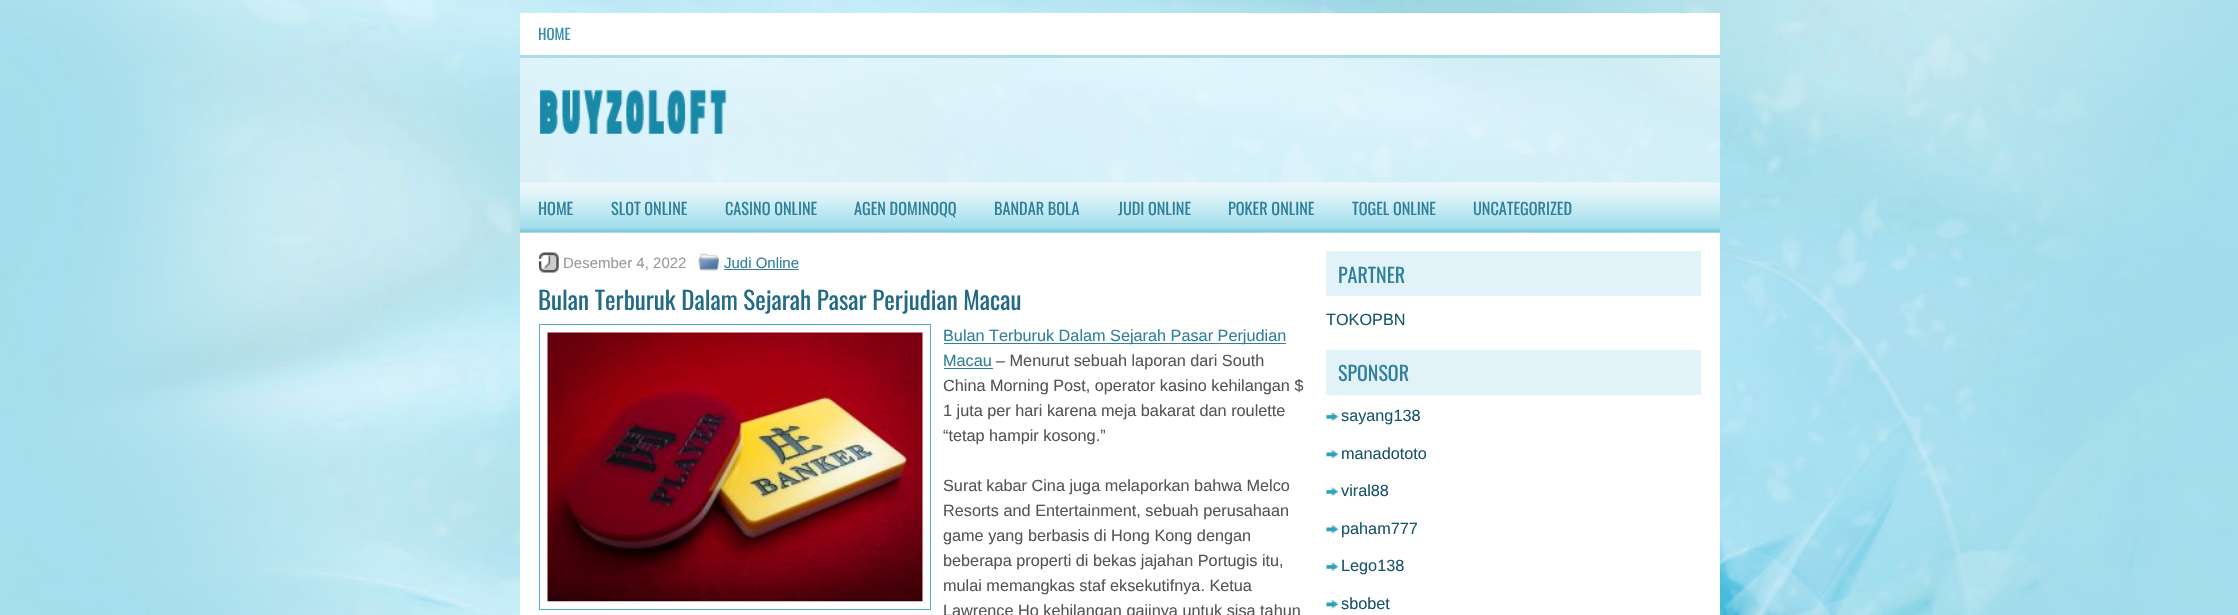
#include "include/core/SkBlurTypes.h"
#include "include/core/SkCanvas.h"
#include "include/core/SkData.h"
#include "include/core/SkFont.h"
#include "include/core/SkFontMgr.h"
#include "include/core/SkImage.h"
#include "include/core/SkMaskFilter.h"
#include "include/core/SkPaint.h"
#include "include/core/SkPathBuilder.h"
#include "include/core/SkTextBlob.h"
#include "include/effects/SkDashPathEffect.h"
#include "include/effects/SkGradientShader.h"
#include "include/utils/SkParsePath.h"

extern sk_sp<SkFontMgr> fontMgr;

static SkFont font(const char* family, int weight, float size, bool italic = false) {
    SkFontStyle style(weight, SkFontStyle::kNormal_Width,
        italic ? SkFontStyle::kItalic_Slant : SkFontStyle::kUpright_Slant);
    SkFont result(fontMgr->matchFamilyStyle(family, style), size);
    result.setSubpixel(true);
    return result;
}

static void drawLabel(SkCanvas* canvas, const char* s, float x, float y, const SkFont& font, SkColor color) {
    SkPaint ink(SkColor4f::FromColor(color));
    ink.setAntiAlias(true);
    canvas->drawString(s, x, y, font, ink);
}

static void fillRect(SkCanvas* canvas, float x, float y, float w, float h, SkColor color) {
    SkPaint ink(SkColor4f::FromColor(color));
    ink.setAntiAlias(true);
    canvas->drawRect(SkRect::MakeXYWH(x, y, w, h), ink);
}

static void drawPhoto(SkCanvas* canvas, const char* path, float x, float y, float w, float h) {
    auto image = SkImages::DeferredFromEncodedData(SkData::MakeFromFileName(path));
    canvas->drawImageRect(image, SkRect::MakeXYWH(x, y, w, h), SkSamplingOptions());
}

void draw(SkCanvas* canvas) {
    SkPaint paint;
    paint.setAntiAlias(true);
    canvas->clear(0xFFFFFFFF);
    drawPhoto(canvas, "assets/img1.png", 0, 0, 2238, 615);
    fillRect(canvas, 520, 13, 1200, 42, 0xFFFFFFFF);
    fillRect(canvas, 520, 55, 1200, 3, 0xFFAADDEC);
    SkFont font1 = font("Oswald", 400, 15);
    drawLabel(canvas, "HOME", 538, 40, font1, 0xFF3790B1);
    fillRect(canvas, 520, 58, 1200, 125, 0x80FFFFFF);
    drawPhoto(canvas, "assets/img2.png", 539, 89, 188, 45);
    drawPhoto(canvas, "assets/img3.png", 520, 182, 1200, 51);
    SkFont font2 = font("Oswald", 400, 16.25f);
    drawLabel(canvas, "HOME", 538, 215, font2, 0xFF30809A);
    drawLabel(canvas, "SLOT ONLINE", 611, 215, font2, 0xFF30809A);
    drawLabel(canvas, "CASINO ONLINE", 725, 215, font2, 0xFF30809A);
    drawLabel(canvas, "AGEN DOMINOQQ", 854, 215, font2, 0xFF30809A);
    drawLabel(canvas, "BANDAR BOLA", 994, 215, font2, 0xFF30809A);
    drawLabel(canvas, "JUDI ONLINE", 1118, 215, font2, 0xFF30809A);
    drawLabel(canvas, "POKER ONLINE", 1228, 215, font2, 0xFF30809A);
    drawLabel(canvas, "TOGEL ONLINE", 1352, 215, font2, 0xFF30809A);
    drawLabel(canvas, "UNCATEGORIZED", 1473, 215, font2, 0xFF30809A);
    fillRect(canvas, 520, 233, 1200, 382, 0xFFFFFFFF);
    drawPhoto(canvas, "assets/img4.png", 538, 252, 21, 21);
    SkFont font3 = font("Liberation Sans", 400, 15);
    drawLabel(canvas, "Desember 4, 2022", 563, 268, font3, 0xFF999999);
    drawPhoto(canvas, "assets/img5.png", 698, 253, 21, 18);
    drawLabel(canvas, "Judi Online", 724, 268, font3, 0xFF30809A);
    fillRect(canvas, 724, 269, 75, 1, 0xFF30809A);
    SkFont font4 = font("Oswald", 400, 25);
    drawLabel(canvas, "Bulan Terburuk Dalam Sejarah Pasar Perjudian Macau", 538, 310, font4, 0xFF236B84);
    paint.setStroke(true);
    paint.setStrokeWidth(1);
    paint.setColor(0xFF55ACC6);
    canvas->drawRect(SkRect::MakeXYWH(539.5f, 324.5f, 391, 285), paint);
    drawPhoto(canvas, "assets/img6.png", 547, 332, 376, 270);
    fillRect(canvas, 944, 343, 342, 1, 0xFF30809A);
    SkFont font5 = font("Liberation Sans", 400, 16.25f);
    drawLabel(canvas, "Bulan Terburuk Dalam Sejarah Pasar Perjudian", 943, 341, font5, 0xFF30809A);
    drawLabel(canvas, "Macau", 943, 366, font5, 0xFF30809A);
    fillRect(canvas, 944, 368, 49, 1, 0xFF30809A);
    drawLabel(canvas, "– Menurut sebuah laporan dari South", 996, 366, font5, 0xFF555555);
    drawLabel(canvas, "China Morning Post, operator kasino kehilangan $", 943, 391, font5, 0xFF555555);
    drawLabel(canvas, "1 juta per hari karena meja bakarat dan roulette", 943, 416, font5, 0xFF555555);
    drawLabel(canvas, "“tetap hampir kosong.”", 943, 441, font5, 0xFF555555);
    drawLabel(canvas, "Surat kabar Cina juga melaporkan bahwa Melco", 943, 491, font5, 0xFF555555);
    drawLabel(canvas, "Resorts and Entertainment, sebuah perusahaan", 943, 516, font5, 0xFF555555);
    drawLabel(canvas, "game yang berbasis di Hong Kong dengan", 943, 541, font5, 0xFF555555);
    drawLabel(canvas, "beberapa properti di bekas jajahan Portugis itu,", 943, 566, font5, 0xFF555555);
    drawLabel(canvas, "mulai memangkas staf eksekutifnya. Ketua", 943, 591, font5, 0xFF555555);
    drawLabel(canvas, "Lawrence Ho kehilangan gajinya untuk sisa tahun", 943, 616, font5, 0xFF555555);
    fillRect(canvas, 1326, 251, 375, 45, 0xFFE1F3F8);
    SkFont font6 = font("Oswald", 400, 20);
    drawLabel(canvas, "PARTNER", 1338, 283, font6, 0xFF30809A);
    drawLabel(canvas, "TOKOPBN", 1326, 325, font5, 0xFF1A556B);
    fillRect(canvas, 1326, 350, 375, 45, 0xFFE1F3F8);
    drawLabel(canvas, "SPONSOR", 1338, 381, font6, 0xFF30809A);
    drawPhoto(canvas, "assets/img7.png", 1326, 412, 13, 10);
    drawLabel(canvas, "sayang138", 1341, 421, font5, 0xFF1A556B);
    drawPhoto(canvas, "assets/img8.png", 1326, 450, 13, 9);
    drawLabel(canvas, "manadototo", 1341, 459, font5, 0xFF1A556B);
    drawPhoto(canvas, "assets/img7.png", 1326, 487, 13, 10);
    drawLabel(canvas, "viral88", 1341, 496, font5, 0xFF1A556B);
    drawPhoto(canvas, "assets/img8.png", 1326, 525, 13, 9);
    drawLabel(canvas, "paham777", 1341, 534, font5, 0xFF1A556B);
    drawPhoto(canvas, "assets/img7.png", 1326, 562, 13, 10);
    drawLabel(canvas, "Lego138", 1341, 571, font5, 0xFF1A556B);
    drawPhoto(canvas, "assets/img8.png", 1326, 600, 13, 9);
    drawLabel(canvas, "sbobet", 1341, 609, font5, 0xFF1A556B);
}
